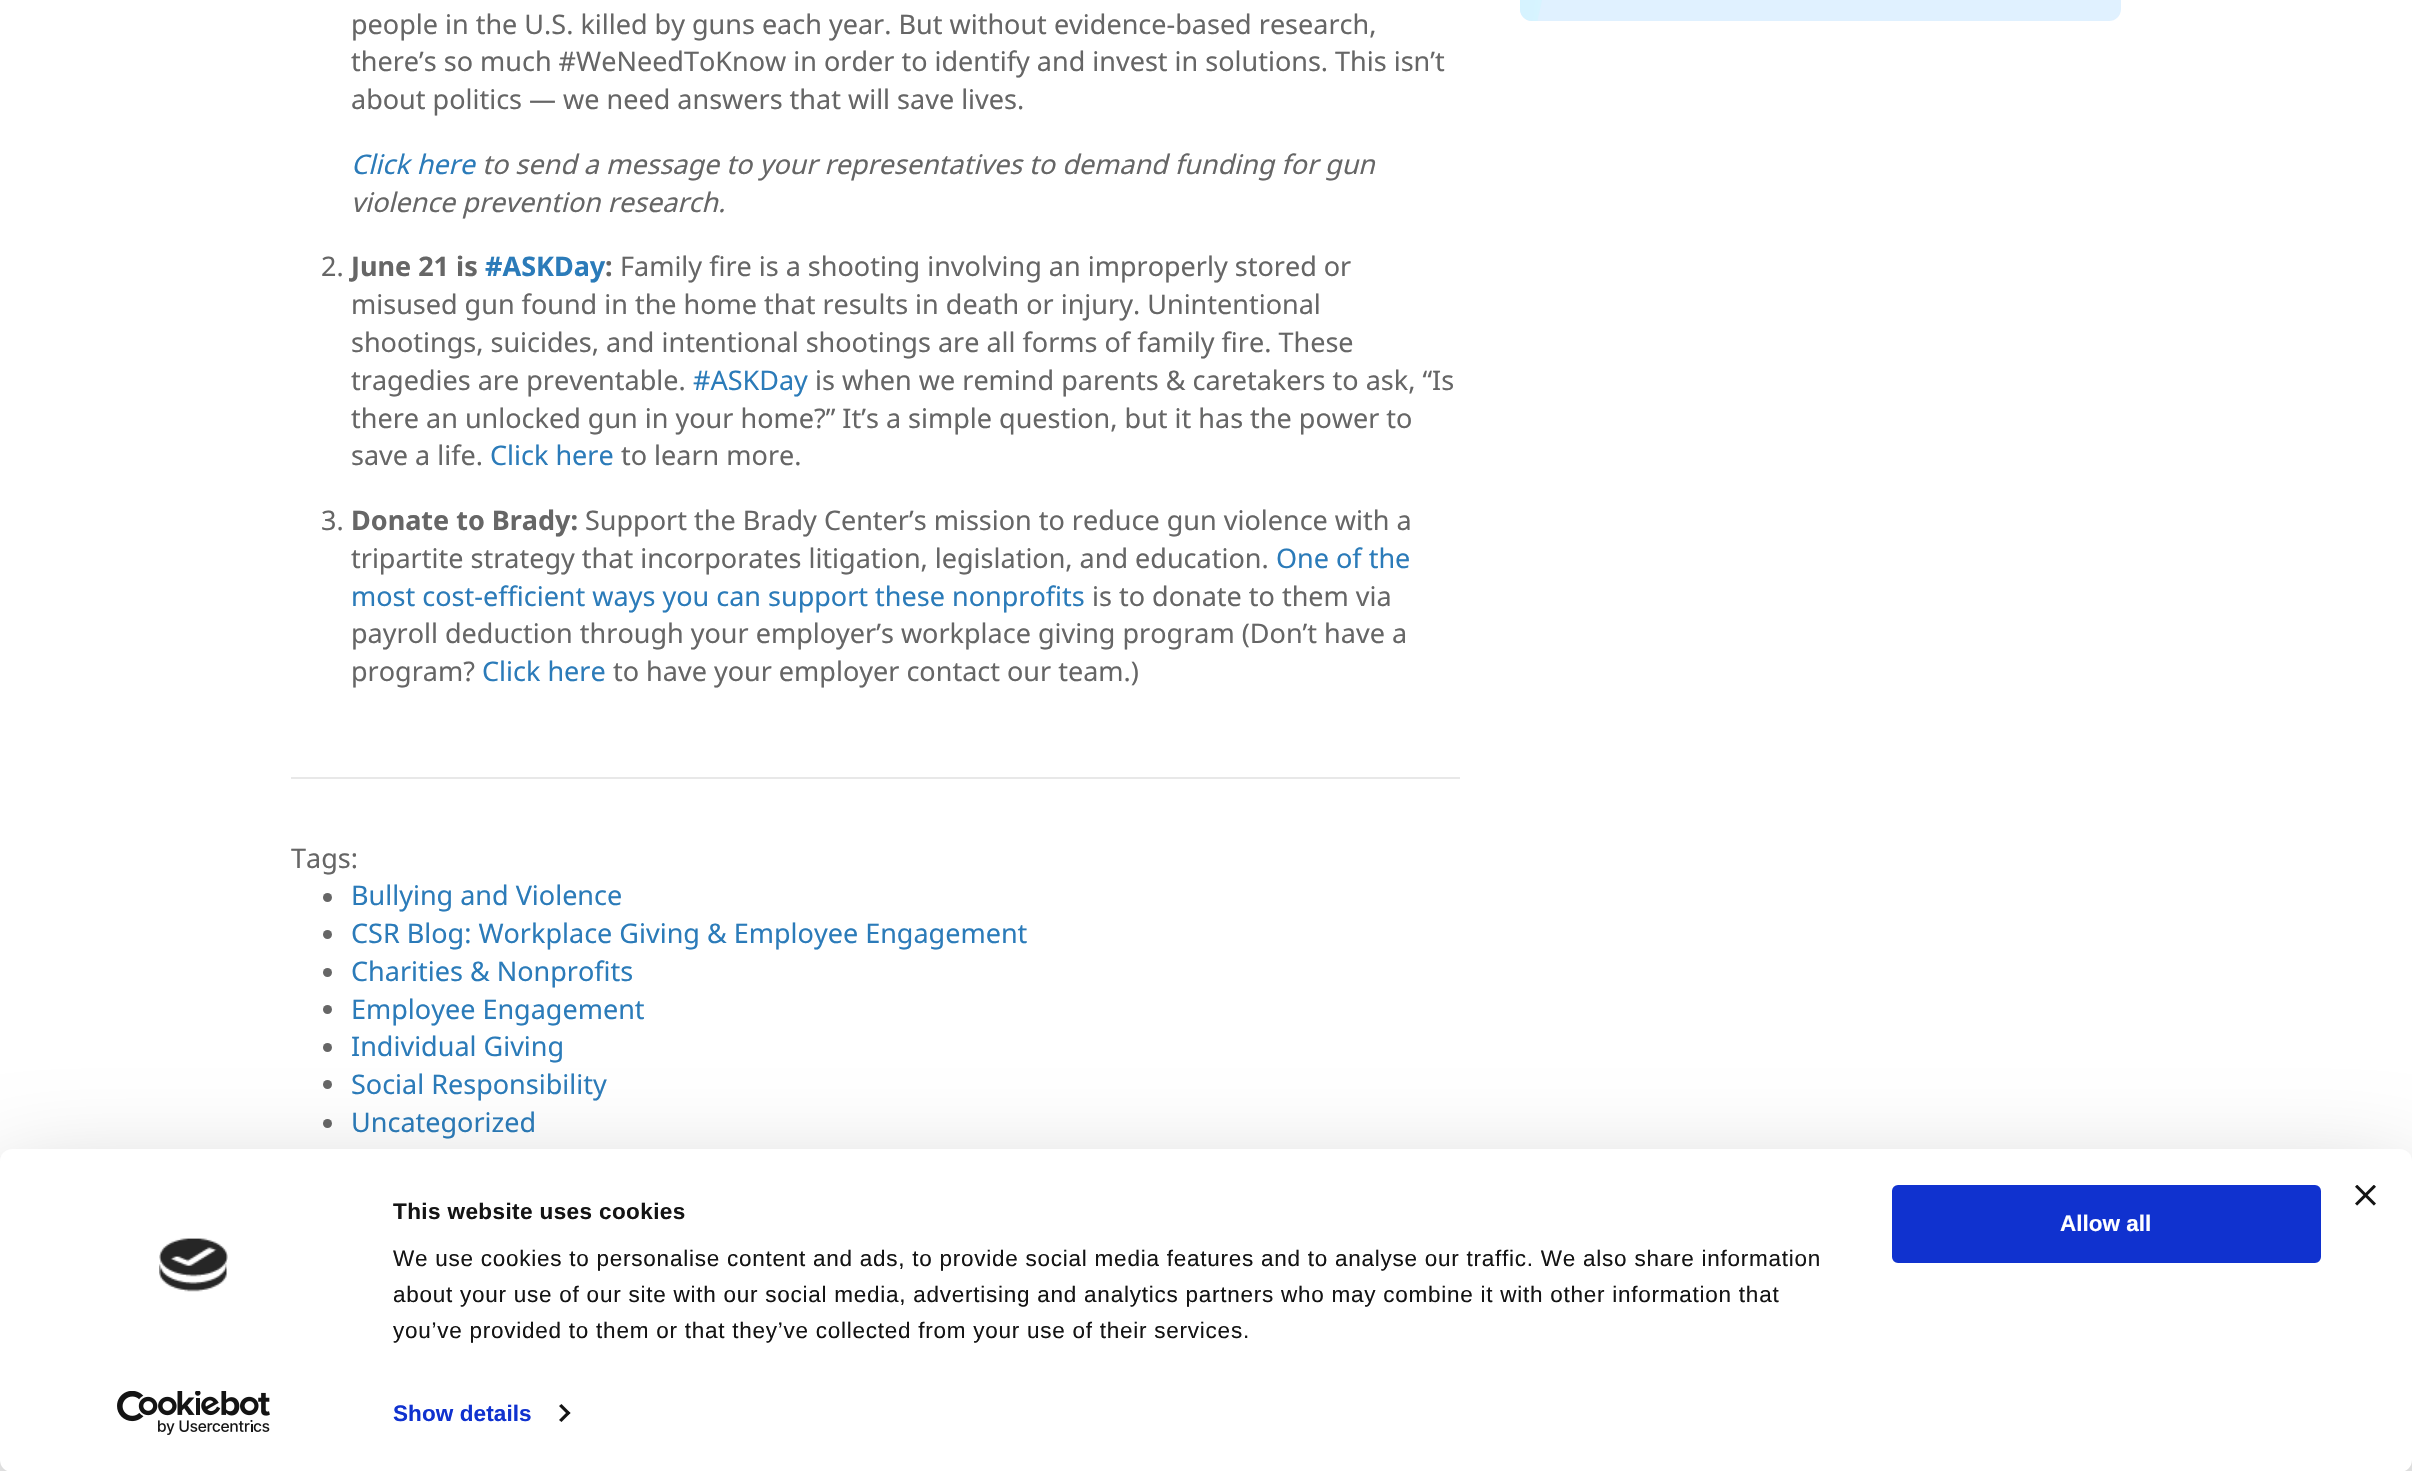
#include "include/core/SkBlurTypes.h"
#include "include/core/SkCanvas.h"
#include "include/core/SkData.h"
#include "include/core/SkFont.h"
#include "include/core/SkFontMgr.h"
#include "include/core/SkImage.h"
#include "include/core/SkMaskFilter.h"
#include "include/core/SkPaint.h"
#include "include/core/SkPathBuilder.h"
#include "include/core/SkTextBlob.h"
#include "include/effects/SkDashPathEffect.h"
#include "include/effects/SkGradientShader.h"
#include "include/utils/SkParsePath.h"

extern sk_sp<SkFontMgr> fontMgr;

static SkFont font(const char* family, int weight, float size, bool italic = false) {
    SkFontStyle style(weight, SkFontStyle::kNormal_Width,
        italic ? SkFontStyle::kItalic_Slant : SkFontStyle::kUpright_Slant);
    SkFont result(fontMgr->matchFamilyStyle(family, style), size);
    result.setSubpixel(true);
    return result;
}

static void drawLabel(SkCanvas* canvas, const char* s, float x, float y, const SkFont& font, SkColor color) {
    SkPaint ink(SkColor4f::FromColor(color));
    ink.setAntiAlias(true);
    canvas->drawString(s, x, y, font, ink);
}

static void drawTracked(SkCanvas* canvas, const char* s, float x, float y, const SkFont& font, const SkPaint& ink, float letter, float word) {
    std::vector<SkGlyphID> glyphs(font.countText(s, strlen(s), SkTextEncoding::kUTF8));
    std::vector<float> xs(glyphs.size());
    font.textToGlyphs(s, strlen(s), SkTextEncoding::kUTF8, glyphs);
    font.getXPos(glyphs, xs, x);
    float extra = 0;
    for (size_t i = 0; i < glyphs.size(); i++) {
        xs[i] += extra;
        extra += letter + word * (glyphs[i] == font.unicharToGlyph(' '));
    }
    canvas->drawTextBlob(SkTextBlob::MakeFromPosHGlyphs(glyphs, xs, y, font), 0, 0, ink);
}

static void fillRect(SkCanvas* canvas, float x, float y, float w, float h, SkColor color) {
    SkPaint ink(SkColor4f::FromColor(color));
    ink.setAntiAlias(true);
    canvas->drawRect(SkRect::MakeXYWH(x, y, w, h), ink);
}

static void fillRRect(SkCanvas* canvas, float x, float y, float w, float h, float radius, SkColor color) {
    SkPaint ink(SkColor4f::FromColor(color));
    ink.setAntiAlias(true);
    canvas->drawRoundRect(SkRect::MakeXYWH(x, y, w, h), radius, radius, ink);
}

static void drawPhoto(SkCanvas* canvas, const char* path, float x, float y, float w, float h) {
    auto image = SkImages::DeferredFromEncodedData(SkData::MakeFromFileName(path));
    canvas->drawImageRect(image, SkRect::MakeXYWH(x, y, w, h), SkSamplingOptions());
}

static SkPath parsePath(const char* data, bool evenOdd = false) {
    SkPath result = *SkParsePath::FromSVGString(data);
    if (evenOdd) result.setFillType(SkPathFillType::kEvenOdd);
    return result;
}

void draw(SkCanvas* canvas) {
    SkPaint paint;
    paint.setAntiAlias(true);
    canvas->clear(0xFFFFFFFF);
    fillRRect(canvas, 1520, -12, 601, 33, 12, 0xFFE0F1FF);
    canvas->save();
    canvas->clipPath(parsePath("M1532-702H2109C2115.5-702 2121-696.5 2121-690V9C2121 15.5 2115.5 21 2109 21H1532C1525.5 21 1520 15.5 1520 9V-690C1520-696.5 1525.5-702 1532-702Z"), true);
    paint.setStroke(true);
    paint.setStrokeWidth(91.3f);
    paint.setStrokeCap(SkPaint::kRound_Cap);
    paint.setStrokeJoin(SkPaint::kRound_Join);
    {
        const SkColor colors[] = {0xFFD1F2FF, 0xFFFFFFFF};
        const float stops[] = {0, 1};
        const SkPoint ends[] = {{1501, -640}, {2276, -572}};
        paint.setShader(SkGradientShader::MakeLinear(ends, colors, stops, 2, SkTileMode::kClamp));
        paint.setAlpha(255);
    }
    canvas->drawPath(parsePath("M1479.5 109C1484.5-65.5 1680-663.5 1899.5-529.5C2118.5-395.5 2230.5-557.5 2259-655"), paint);
    canvas->restore();
    SkFont font1 = font("Noto Sans", 400, 27);
    drawLabel(canvas, "people in the U.S. killed by guns each year. But without evidence-based research,", 351, 34, font1, 0xFF666666);
    drawLabel(canvas, "there’s so much #WeNeedToKnow in order to identify and invest in solutions. This isn’t", 351, 71, font1, 0xFF666666);
    drawLabel(canvas, "about politics — we need answers that will save lives.", 351, 109, font1, 0xFF666666);
    SkFont font2 = font("Noto Sans", 400, 27, true);
    drawLabel(canvas, "Click here", 351, 174, font2, 0xFF2B7BB9);
    drawLabel(canvas, "to send a message to your representatives to demand funding for gun", 482, 174, font2, 0xFF666666);
    drawLabel(canvas, "violence prevention research.", 351, 212, font2, 0xFF666666);
    drawLabel(canvas, "2.", 321, 276, font1, 0xFF666666);
    SkFont font3 = font("Noto Sans", 700, 27);
    drawLabel(canvas, "June 21 is", 351, 276, font3, 0xFF666666);
    drawLabel(canvas, "#ASKDay", 485, 276, font3, 0xFF2B7BB9);
    drawLabel(canvas, ":", 605, 276, font3, 0xFF666666);
    drawLabel(canvas, "Family fire is a shooting involving an improperly stored or", 620, 276, font1, 0xFF666666);
    drawLabel(canvas, "misused gun found in the home that results in death or injury. Unintentional", 351, 314, font1, 0xFF666666);
    drawLabel(canvas, "shootings, suicides, and intentional shootings are all forms of family fire. These", 351, 352, font1, 0xFF666666);
    drawLabel(canvas, "tragedies are preventable.", 351, 390, font1, 0xFF666666);
    drawLabel(canvas, "#ASKDay", 693, 390, font1, 0xFF2B7BB9);
    drawLabel(canvas, "is when we remind parents & caretakers to ask, “Is", 815, 390, font1, 0xFF666666);
    drawLabel(canvas, "there an unlocked gun in your home?” It’s a simple question, but it has the power to", 351, 428, font1, 0xFF666666);
    drawLabel(canvas, "save a life.", 351, 465, font1, 0xFF666666);
    drawLabel(canvas, "Click here", 490, 465, font1, 0xFF2B7BB9);
    drawLabel(canvas, "to learn more.", 621, 465, font1, 0xFF666666);
    drawLabel(canvas, "3.", 321, 530, font1, 0xFF666666);
    drawLabel(canvas, "Donate to Brady:", 351, 530, font3, 0xFF666666);
    drawLabel(canvas, "Support the Brady Center’s mission to reduce gun violence with a", 585, 530, font1, 0xFF666666);
    drawLabel(canvas, "tripartite strategy that incorporates litigation, legislation, and education.", 351, 568, font1, 0xFF666666);
    drawLabel(canvas, "One of the", 1276, 568, font1, 0xFF2B7BB9);
    drawLabel(canvas, "most cost-efficient ways you can support these nonprofits", 351, 606, font1, 0xFF2B7BB9);
    drawLabel(canvas, "is to donate to them via", 1092, 606, font1, 0xFF666666);
    drawLabel(canvas, "payroll deduction through your employer’s workplace giving program (Don’t have a", 351, 643, font1, 0xFF666666);
    drawLabel(canvas, "program?", 351, 681, font1, 0xFF666666);
    drawLabel(canvas, "Click here", 482, 681, font1, 0xFF2B7BB9);
    drawLabel(canvas, "to have your employer contact our team.)", 613, 681, font1, 0xFF666666);
    fillRect(canvas, 291, 777, 1169, 2, 0xFFE8E8E8);
    drawLabel(canvas, "Tags:", 291, 868, font1, 0xFF666666);
    paint.setStroke(false);
    paint.setShader(nullptr);
    paint.setColor(0xFF666666);
    canvas->drawCircle(327.5f, 897.5f, 4.5f, paint);
    drawLabel(canvas, "Bullying and Violence", 351, 905, font1, 0xFF2B7BB9);
    canvas->drawCircle(327.5f, 934.5f, 4.5f, paint);
    drawLabel(canvas, "CSR Blog: Workplace Giving & Employee Engagement", 351, 943, font1, 0xFF2B7BB9);
    canvas->drawCircle(327.5f, 972.5f, 4.5f, paint);
    drawLabel(canvas, "Charities & Nonprofits", 351, 981, font1, 0xFF2B7BB9);
    canvas->drawCircle(327.5f, 1009.5f, 4.5f, paint);
    drawLabel(canvas, "Employee Engagement", 351, 1019, font1, 0xFF2B7BB9);
    canvas->drawCircle(327.5f, 1047.5f, 4.5f, paint);
    drawLabel(canvas, "Individual Giving", 351, 1056, font1, 0xFF2B7BB9);
    canvas->drawCircle(327.5f, 1084.5f, 4.5f, paint);
    drawLabel(canvas, "Social Responsibility", 351, 1094, font1, 0xFF2B7BB9);
    canvas->drawCircle(327.5f, 1123.5f, 4.5f, paint);
    drawLabel(canvas, "Uncategorized", 351, 1132, font1, 0xFF2B7BB9);
    paint.setColor(0x4D000000);
    paint.setMaskFilter(SkMaskFilter::MakeBlur(kNormal_SkBlurStyle, 52.5f));
    canvas->drawRoundRect(SkRect::MakeXYWH(0, 1194, 2412, 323), 12, 12, paint);
    paint.setMaskFilter(nullptr);
    fillRRect(canvas, 0, 1149, 2412, 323, 12, 0xFFFFFFFF);
    drawPhoto(canvas, "assets/img1.png", 2355, 1185, 21, 21);
    SkFont font4 = font("Liberation Sans", 700, 22.5f);
    paint.setColor(0xFF141414);
    drawTracked(canvas, "This website uses cookies", 393, 1219, font4, paint, 0.4f, 0);
    SkFont font5 = font("Liberation Sans", 400, 22.5f);
    drawTracked(canvas, "We use cookies to personalise content and ads, to provide social media features and to analyse our traffic. We also share information", 393, 1266, font5, paint, 0.75f, 0);
    drawTracked(canvas, "about your use of our site with our social media, advertising and analytics partners who may combine it with other information that", 393, 1302, font5, paint, 0.75f, 0);
    drawTracked(canvas, "you’ve provided to them or that they’ve collected from your use of their services.", 393, 1338, font5, paint, 0.75f, 0);
    paint.setColor(0xFF1032CF);
    drawTracked(canvas, "Show details", 393, 1421, font4, paint, 0.1f, 0);
    paint.setColor(0xFF141414);
    canvas->drawPath(parsePath("M561.5 1404L570.5 1413L568 1415L559 1406Z"), paint);
    canvas->drawPath(parsePath("M568 1411L570.5 1413L561.5 1422L559 1420Z"), paint);
    paint.setColor(0xFF1032CF);
    canvas->drawRoundRect(SkRect::MakeXYWH(1893.5f, 1186.5f, 426, 75), 4.5f, 4.5f, paint);
    paint.setStroke(true);
    paint.setStrokeWidth(3);
    paint.setStrokeCap(SkPaint::kButt_Cap);
    paint.setStrokeJoin(SkPaint::kMiter_Join);
    canvas->drawRoundRect(SkRect::MakeXYWH(1893.5f, 1186.5f, 426, 75), 4.5f, 4.5f, paint);
    drawLabel(canvas, "Allow all", 2060, 1231, font4, 0xFFFFFFFF);
    drawPhoto(canvas, "assets/img2.png", 159, 1238, 69, 54);
    drawPhoto(canvas, "assets/img3.png", 117, 1391, 153, 44);
}
